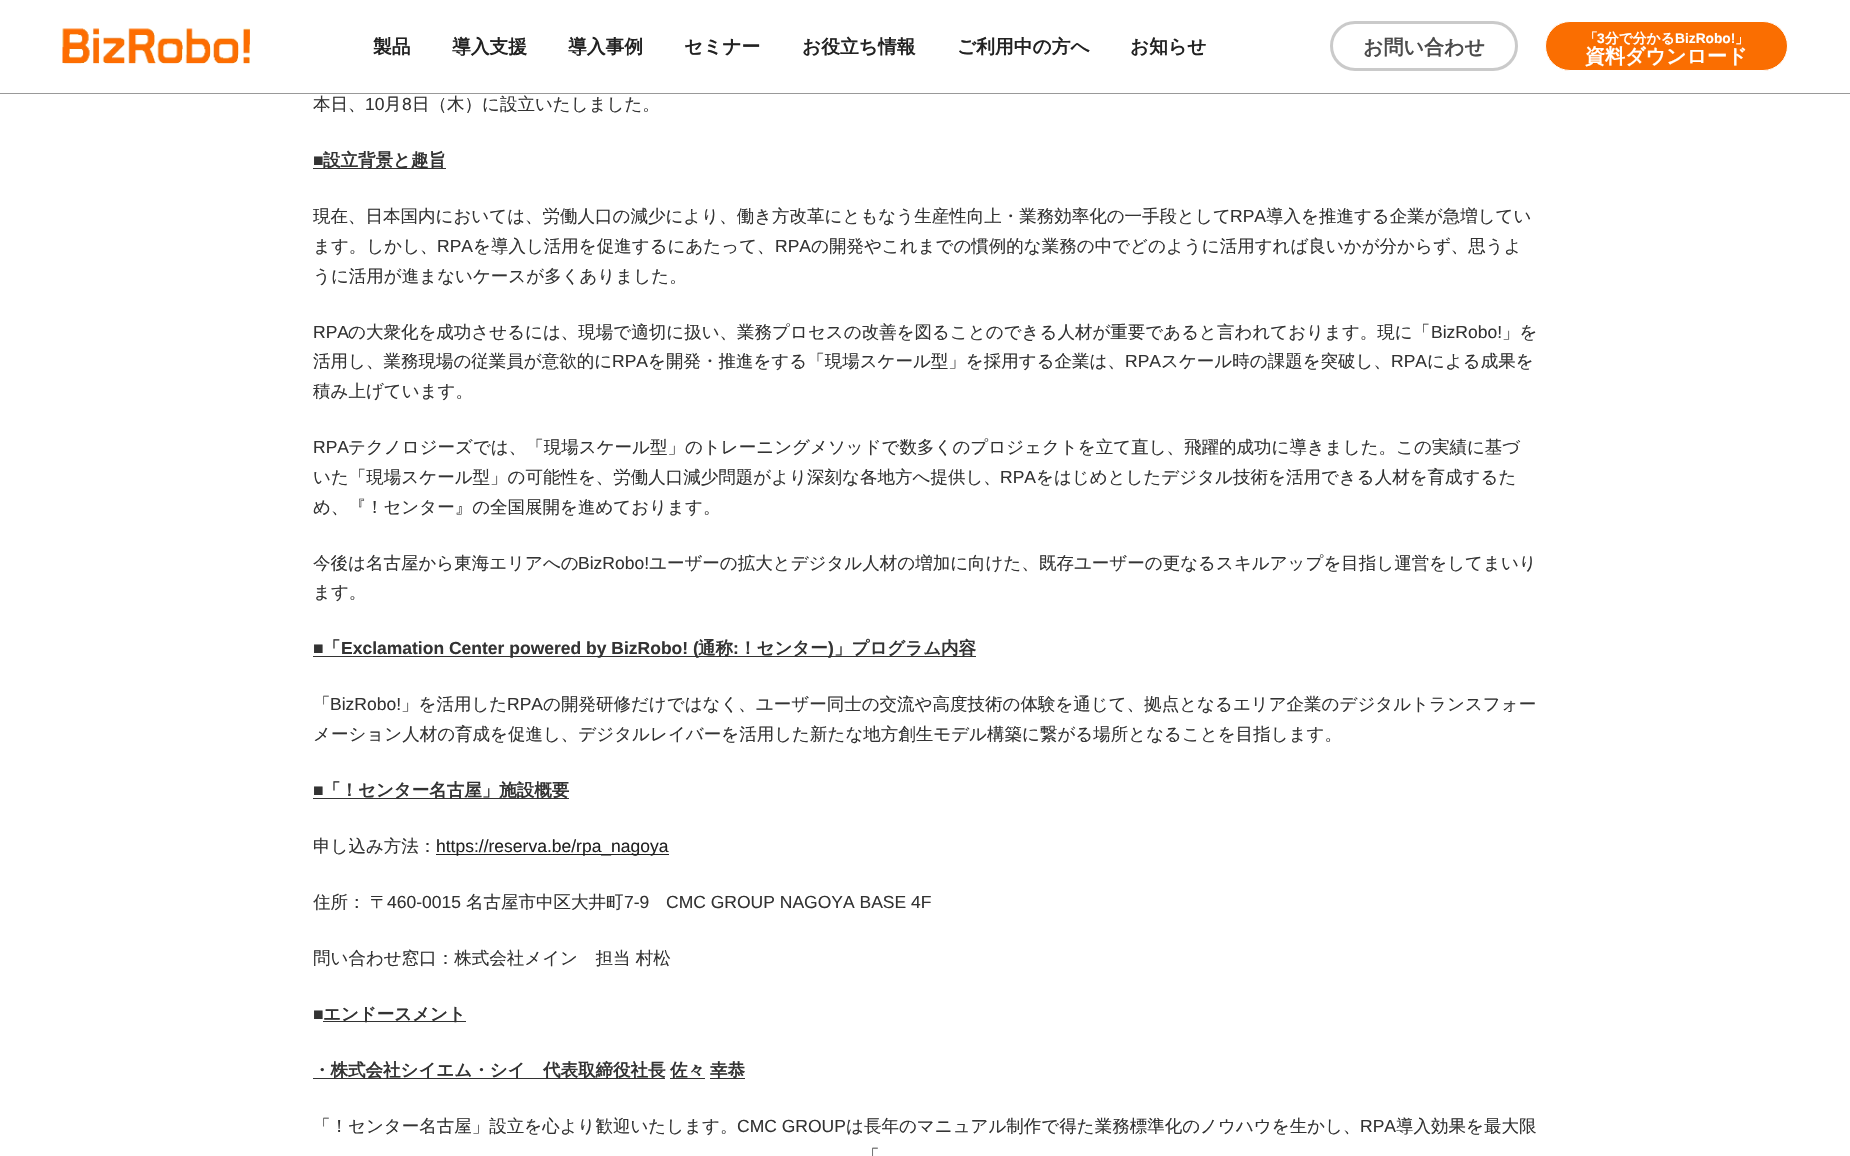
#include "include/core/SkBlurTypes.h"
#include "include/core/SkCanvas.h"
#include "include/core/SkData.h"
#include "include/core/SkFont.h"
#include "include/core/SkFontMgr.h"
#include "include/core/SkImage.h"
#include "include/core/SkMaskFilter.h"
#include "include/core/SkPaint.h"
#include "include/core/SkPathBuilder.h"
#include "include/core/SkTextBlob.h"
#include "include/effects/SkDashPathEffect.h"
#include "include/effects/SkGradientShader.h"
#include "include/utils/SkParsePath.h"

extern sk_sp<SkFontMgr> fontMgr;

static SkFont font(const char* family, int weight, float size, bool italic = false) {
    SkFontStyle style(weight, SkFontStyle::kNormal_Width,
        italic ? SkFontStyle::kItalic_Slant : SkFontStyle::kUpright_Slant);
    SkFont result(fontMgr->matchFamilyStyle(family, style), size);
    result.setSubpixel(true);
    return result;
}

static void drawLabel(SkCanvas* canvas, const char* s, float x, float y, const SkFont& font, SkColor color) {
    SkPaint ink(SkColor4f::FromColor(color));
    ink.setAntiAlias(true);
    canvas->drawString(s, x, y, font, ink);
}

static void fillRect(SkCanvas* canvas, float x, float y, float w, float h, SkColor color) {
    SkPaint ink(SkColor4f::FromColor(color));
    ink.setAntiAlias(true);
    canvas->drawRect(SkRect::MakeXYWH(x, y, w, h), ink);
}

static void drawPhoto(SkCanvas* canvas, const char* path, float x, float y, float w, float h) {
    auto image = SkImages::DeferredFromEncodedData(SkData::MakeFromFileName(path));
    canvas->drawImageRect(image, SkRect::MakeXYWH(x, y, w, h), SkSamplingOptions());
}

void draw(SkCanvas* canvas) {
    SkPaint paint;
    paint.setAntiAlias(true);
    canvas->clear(0xFFFFFFFF);
    fillRect(canvas, 0, 93, 1850, 1, 0xFF999999);
    drawPhoto(canvas, "assets/img1.png", 62, 28, 188, 36);
    SkFont font1 = font("WenQuanYi Zen Hei", 700, 18.75f);
    drawLabel(canvas, "製品", 373, 53, font1, 0xFF222222);
    drawLabel(canvas, "導入支援", 452, 53, font1, 0xFF222222);
    drawLabel(canvas, "導入事例", 568, 53, font1, 0xFF222222);
    drawLabel(canvas, "セミナー", 684, 53, font1, 0xFF222222);
    drawLabel(canvas, "お役立ち情報", 802, 53, font1, 0xFF222222);
    drawLabel(canvas, "ご利用中の方へ", 957, 53, font1, 0xFF222222);
    drawLabel(canvas, "お知らせ", 1130, 53, font1, 0xFF222222);
    paint.setStroke(true);
    paint.setStrokeWidth(3);
    paint.setColor(0xFFCACACA);
    canvas->drawRoundRect(SkRect::MakeXYWH(1331.5f, 22.5f, 185, 47), 23.5f, 23.5f, paint);
    SkFont font2 = font("WenQuanYi Zen Hei", 700, 20);
    drawLabel(canvas, "お問い合わせ", 1363, 54, font2, 0xFF4C4C4C);
    paint.setStroke(false);
    paint.setColor(0xFFFA6E01);
    canvas->drawRoundRect(SkRect::MakeXYWH(1545.5f, 21.5f, 242, 49), 24.5f, 24.5f, paint);
    paint.setStroke(true);
    paint.setStrokeWidth(1);
    paint.setColor(0xFFFFFFFF);
    canvas->drawRoundRect(SkRect::MakeXYWH(1545.5f, 21.5f, 242, 49), 24.5f, 24.5f, paint);
    SkFont font3 = font("WenQuanYi Zen Hei", 700, 13.75f);
    drawLabel(canvas, "「", 1584, 43, font3, 0xFFFFFFFF);
    SkFont font4 = font("Liberation Sans", 700, 13.75f);
    drawLabel(canvas, "3", 1597, 43, font4, 0xFFFFFFFF);
    drawLabel(canvas, "分で分かる", 1605, 43, font3, 0xFFFFFFFF);
    drawLabel(canvas, "BizRobo!", 1675, 43, font4, 0xFFFFFFFF);
    drawLabel(canvas, "」", 1735, 43, font3, 0xFFFFFFFF);
    drawLabel(canvas, "資料ダウンロード", 1585, 63, font2, 0xFFFFFFFF);
    SkFont font5 = font("WenQuanYi Zen Hei", 500, 17.5f);
    drawLabel(canvas, "本日、", 313, 110, font5, 0xFF333333);
    SkFont font6 = font("Liberation Sans", 400, 17.5f);
    drawLabel(canvas, "10", 365, 110, font6, 0xFF333333);
    drawLabel(canvas, "月", 384, 110, font5, 0xFF333333);
    drawLabel(canvas, "8", 402, 110, font6, 0xFF333333);
    drawLabel(canvas, "日（木）に設立いたしました。", 412, 110, font5, 0xFF333333);
    SkFont font7 = font("Liberation Sans", 700, 17.5f);
    drawLabel(canvas, "■", 313, 166, font7, 0xFF333333);
    fillRect(canvas, 313, 168, 133, 1, 0xFF333333);
    SkFont font8 = font("WenQuanYi Zen Hei", 700, 17.5f);
    drawLabel(canvas, "設立背景と趣旨", 323, 166, font8, 0xFF333333);
    drawLabel(canvas, "現在、日本国内においては、労働人口の減少により、働き方改革にともなう生産性向上・業務効率化の一手段として", 313, 222, font5, 0xFF333333);
    drawLabel(canvas, "RPA", 1230, 222, font6, 0xFF333333);
    drawLabel(canvas, "導入を推進する企業が急増してい", 1266, 222, font5, 0xFF333333);
    drawLabel(canvas, "ます。しかし、", 313, 252, font5, 0xFF333333);
    drawLabel(canvas, "RPA", 437, 252, font6, 0xFF333333);
    drawLabel(canvas, "を導入し活用を促進するにあたって、", 473, 252, font5, 0xFF333333);
    drawLabel(canvas, "RPA", 775, 252, font6, 0xFF333333);
    drawLabel(canvas, "の開発やこれまでの慣例的な業務の中でどのように活用すれば良いかが分からず、思うよ", 811, 252, font5, 0xFF333333);
    drawLabel(canvas, "うに活用が進まないケースが多くありました。", 313, 282, font5, 0xFF333333);
    drawLabel(canvas, "RPA", 313, 338, font6, 0xFF333333);
    drawLabel(canvas, "の大衆化を成功させるには、現場で適切に扱い、業務プロセスの改善を図ることのできる人材が重要であると言われております。現に「", 348, 338, font5, 0xFF333333);
    drawLabel(canvas, "BizRobo!", 1431, 338, font6, 0xFF333333);
    drawLabel(canvas, "」を", 1502, 338, font5, 0xFF333333);
    drawLabel(canvas, "活用し、業務現場の従業員が意欲的に", 313, 367, font5, 0xFF333333);
    drawLabel(canvas, "RPA", 612, 367, font6, 0xFF333333);
    drawLabel(canvas, "を開発・推進をする「現場スケール型」を採用する企業は、", 648, 367, font5, 0xFF333333);
    drawLabel(canvas, "RPA", 1125, 367, font6, 0xFF333333);
    drawLabel(canvas, "スケール時の課題を突破し、", 1161, 367, font5, 0xFF333333);
    drawLabel(canvas, "RPA", 1391, 367, font6, 0xFF333333);
    drawLabel(canvas, "による成果を", 1427, 367, font5, 0xFF333333);
    drawLabel(canvas, "積み上げています。", 313, 397, font5, 0xFF333333);
    drawLabel(canvas, "RPA", 313, 453, font6, 0xFF333333);
    drawLabel(canvas, "テクノロジーズでは、「現場スケール型」のトレーニングメソッドで数多くのプロジェクトを立て直し、飛躍的成功に導きました。この実績に基づ", 348, 453, font5, 0xFF333333);
    drawLabel(canvas, "いた「現場スケール型」の可能性を、労働人口減少問題がより深刻な各地方へ提供し、", 313, 483, font5, 0xFF333333);
    drawLabel(canvas, "RPA", 1000, 483, font6, 0xFF333333);
    drawLabel(canvas, "をはじめとしたデジタル技術を活用できる人材を育成するた", 1036, 483, font5, 0xFF333333);
    drawLabel(canvas, "め、『！センター』の全国展開を進めております。", 313, 513, font5, 0xFF333333);
    drawLabel(canvas, "今後は名古屋から東海エリアへの", 313, 569, font5, 0xFF333333);
    drawLabel(canvas, "BizRobo!", 578, 569, font6, 0xFF333333);
    drawLabel(canvas, "ユーザーの拡大とデジタル人材の増加に向けた、既存ユーザーの更なるスキルアップを目指し運営をしてまいり", 649, 569, font5, 0xFF333333);
    drawLabel(canvas, "ます。", 313, 598, font5, 0xFF333333);
    drawLabel(canvas, "■", 313, 654, font7, 0xFF333333);
    fillRect(canvas, 313, 656, 663, 1, 0xFF333333);
    drawLabel(canvas, "「", 323, 654, font8, 0xFF333333);
    drawLabel(canvas, "Exclamation Center powered by BizRobo! (", 341, 654, font7, 0xFF333333);
    drawLabel(canvas, "通称", 698, 654, font8, 0xFF333333);
    drawLabel(canvas, ":", 733, 654, font7, 0xFF333333);
    drawLabel(canvas, "！センター", 739, 654, font8, 0xFF333333);
    drawLabel(canvas, ")", 828, 654, font7, 0xFF333333);
    drawLabel(canvas, "」プログラム内容", 834, 654, font8, 0xFF333333);
    drawLabel(canvas, "「", 313, 710, font5, 0xFF333333);
    drawLabel(canvas, "BizRobo!", 330, 710, font6, 0xFF333333);
    drawLabel(canvas, "」を活用した", 401, 710, font5, 0xFF333333);
    drawLabel(canvas, "RPA", 507, 710, font6, 0xFF333333);
    drawLabel(canvas, "の開発研修だけではなく、ユーザー同士の交流や高度技術の体験を通じて、拠点となるエリア企業のデジタルトランスフォー", 543, 710, font5, 0xFF333333);
    drawLabel(canvas, "メーション人材の育成を促進し、デジタルレイバーを活用した新たな地方創生モデル構築に繋がる場所となることを目指します。", 313, 740, font5, 0xFF333333);
    drawLabel(canvas, "■", 313, 796, font7, 0xFF333333);
    fillRect(canvas, 313, 798, 256, 1, 0xFF333333);
    drawLabel(canvas, "「！センター名古屋」施設概要", 323, 796, font8, 0xFF333333);
    drawLabel(canvas, "申し込み方法：", 313, 852, font5, 0xFF333333);
    fillRect(canvas, 436, 854, 233, 1, 0xFF222222);
    drawLabel(canvas, "https://reserva.be/rpa_nagoya", 436, 852, font6, 0xFF222222);
    drawLabel(canvas, "住所：", 313, 908, font5, 0xFF333333);
    drawLabel(canvas, "〒", 370, 908, font5, 0xFF333333);
    drawLabel(canvas, "460-0015", 387, 908, font6, 0xFF333333);
    drawLabel(canvas, "名古屋市中区大井町", 466, 908, font5, 0xFF333333);
    drawLabel(canvas, "7-9", 624, 908, font6, 0xFF333333);
    drawLabel(canvas, "CMC GROUP NAGOYA BASE 4F", 666, 908, font6, 0xFF333333);
    drawLabel(canvas, "問い合わせ窓口：株式会社メイン　担当 村松", 313, 964, font5, 0xFF333333);
    drawLabel(canvas, "■", 313, 1020, font6, 0xFF333333);
    fillRect(canvas, 323, 1021, 143, 1, 0xFF333333);
    drawLabel(canvas, "エンドースメント", 323, 1020, font8, 0xFF333333);
    fillRect(canvas, 313, 1078, 352, 1, 0xFF333333);
    drawLabel(canvas, "・株式会社シイエム・シイ　代表取締役社長", 313, 1076, font8, 0xFF333333);
    fillRect(canvas, 670, 1078, 35, 1, 0xFF333333);
    drawLabel(canvas, "佐々", 670, 1076, font8, 0xFF333333);
    fillRect(canvas, 710, 1078, 35, 1, 0xFF333333);
    drawLabel(canvas, "幸恭", 710, 1076, font8, 0xFF333333);
    drawLabel(canvas, "「！センター名古屋」設立を心より歓迎いたします。", 313, 1132, font5, 0xFF333333);
    drawLabel(canvas, "CMC GROUP", 737, 1132, font6, 0xFF333333);
    drawLabel(canvas, "は長年のマニュアル制作で得た業務標準化のノウハウを生かし、", 846, 1132, font5, 0xFF333333);
    drawLabel(canvas, "RPA", 1360, 1132, font6, 0xFF333333);
    drawLabel(canvas, "導入効果を最大限", 1396, 1132, font5, 0xFF333333);
    drawLabel(canvas, "「", 862, 1162, font5, 0xFF333333);
}
